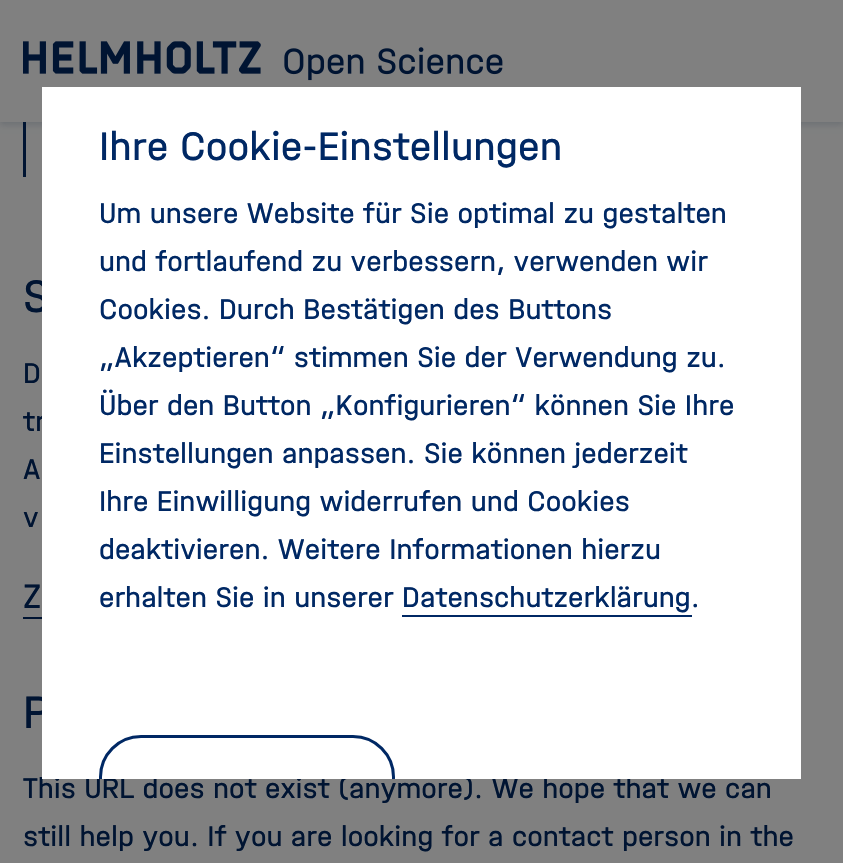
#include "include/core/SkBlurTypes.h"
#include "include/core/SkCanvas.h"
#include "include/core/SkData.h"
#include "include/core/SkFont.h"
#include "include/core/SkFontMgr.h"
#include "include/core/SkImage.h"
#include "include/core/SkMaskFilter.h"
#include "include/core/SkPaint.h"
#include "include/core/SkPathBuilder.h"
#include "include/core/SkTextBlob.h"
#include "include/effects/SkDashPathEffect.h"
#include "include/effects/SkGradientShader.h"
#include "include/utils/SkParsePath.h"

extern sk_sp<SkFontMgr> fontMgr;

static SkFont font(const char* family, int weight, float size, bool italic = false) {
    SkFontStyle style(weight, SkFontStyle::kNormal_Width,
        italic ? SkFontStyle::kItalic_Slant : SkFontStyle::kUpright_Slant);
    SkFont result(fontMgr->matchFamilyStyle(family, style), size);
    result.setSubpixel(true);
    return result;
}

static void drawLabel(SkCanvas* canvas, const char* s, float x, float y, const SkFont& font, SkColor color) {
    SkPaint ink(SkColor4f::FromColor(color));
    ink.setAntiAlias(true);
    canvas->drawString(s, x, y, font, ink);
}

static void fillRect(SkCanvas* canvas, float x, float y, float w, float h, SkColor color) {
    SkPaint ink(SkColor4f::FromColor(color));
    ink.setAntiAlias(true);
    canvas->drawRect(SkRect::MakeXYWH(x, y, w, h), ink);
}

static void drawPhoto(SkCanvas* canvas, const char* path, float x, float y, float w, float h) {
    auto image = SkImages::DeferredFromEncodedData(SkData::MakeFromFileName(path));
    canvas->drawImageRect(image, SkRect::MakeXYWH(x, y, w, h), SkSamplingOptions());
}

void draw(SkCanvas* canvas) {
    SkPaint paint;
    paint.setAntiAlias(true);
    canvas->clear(0xFF808080);
    fillRect(canvas, 23, 122, 3, 55, 0xFF001432);
    paint.setColor(0x26001432);
    paint.setMaskFilter(SkMaskFilter::MakeBlur(kNormal_SkBlurStyle, 3));
    canvas->drawRect(SkRect::MakeXYWH(0, 3, 843, 122), paint);
    paint.setMaskFilter(nullptr);
    fillRect(canvas, 0, 0, 843, 122, 0xFF808080);
    drawPhoto(canvas, "assets/img1.png", 23, 41, 480, 40);
    SkFont font1 = font("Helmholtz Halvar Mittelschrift", 400, 48);
    drawLabel(canvas, "S", 23, 312, font1, 0xFF001432);
    SkFont font2 = font("Helmholtz Halvar Mittelschrift", 400, 30);
    drawLabel(canvas, "tr", 23, 431, font2, 0xFF001432);
    drawLabel(canvas, "P", 23, 728, font1, 0xFF001432);
    drawLabel(canvas, "This URL does not exist (anymore). We hope that we can", 23, 798, font2, 0xFF001432);
    fillRect(canvas, 42, 87, 759, 692, 0xFFFFFFFF);
    SkFont font3 = font("Helmholtz Halvar Mittelschrift", 400, 42);
    drawLabel(canvas, "Ihre Cookie-Einstellungen", 99, 160, font3, 0xFF002864);
    drawLabel(canvas, "Um unsere Website für Sie optimal zu gestalten", 99, 223, font2, 0xFF002864);
    drawLabel(canvas, "und fortlaufend zu verbessern, verwenden wir", 99, 271, font2, 0xFF002864);
    drawLabel(canvas, "Cookies. Durch Bestätigen des Buttons", 99, 319, font2, 0xFF002864);
    drawLabel(canvas, "„Akzeptieren“ stimmen Sie der Verwendung zu.", 99, 367, font2, 0xFF002864);
    drawLabel(canvas, "Über den Button „Konfigurieren“ können Sie Ihre", 99, 415, font2, 0xFF002864);
    drawLabel(canvas, "Einstellungen anpassen. Sie können jederzeit", 99, 463, font2, 0xFF002864);
    drawLabel(canvas, "Ihre Einwilligung widerrufen und Cookies", 99, 511, font2, 0xFF002864);
    drawLabel(canvas, "deaktivieren. Weitere Informationen hierzu", 99, 559, font2, 0xFF002864);
    drawLabel(canvas, "erhalten Sie in unserer Datenschutzerklärung.", 99, 607, font2, 0xFF002864);
    fillRect(canvas, 402, 615, 290, 2, 0xFF002864);
    canvas->save();
    canvas->clipRect(SkRect::MakeXYWH(42, 87, 759, 692));
    paint.setStroke(true);
    paint.setStrokeWidth(3);
    paint.setColor(0xFF002864);
    canvas->drawRoundRect(SkRect::MakeXYWH(100.5f, 736.5f, 293, 81), 40.5f, 40.5f, paint);
    canvas->restore();
    drawLabel(canvas, "D", 23, 383, font2, 0xFF001432);
    drawLabel(canvas, "A", 23, 479, font2, 0xFF001432);
    drawLabel(canvas, "v", 23, 527, font2, 0xFF001432);
    SkFont font4 = font("Helmholtz Halvar Mittelschrift", 400, 36);
    drawLabel(canvas, "Z", 23, 608, font4, 0xFF001432);
    fillRect(canvas, 23, 617, 19, 2, 0xFF001432);
    drawLabel(canvas, "still help you. If you are looking for a contact person in the", 23, 846, font2, 0xFF001432);
}
